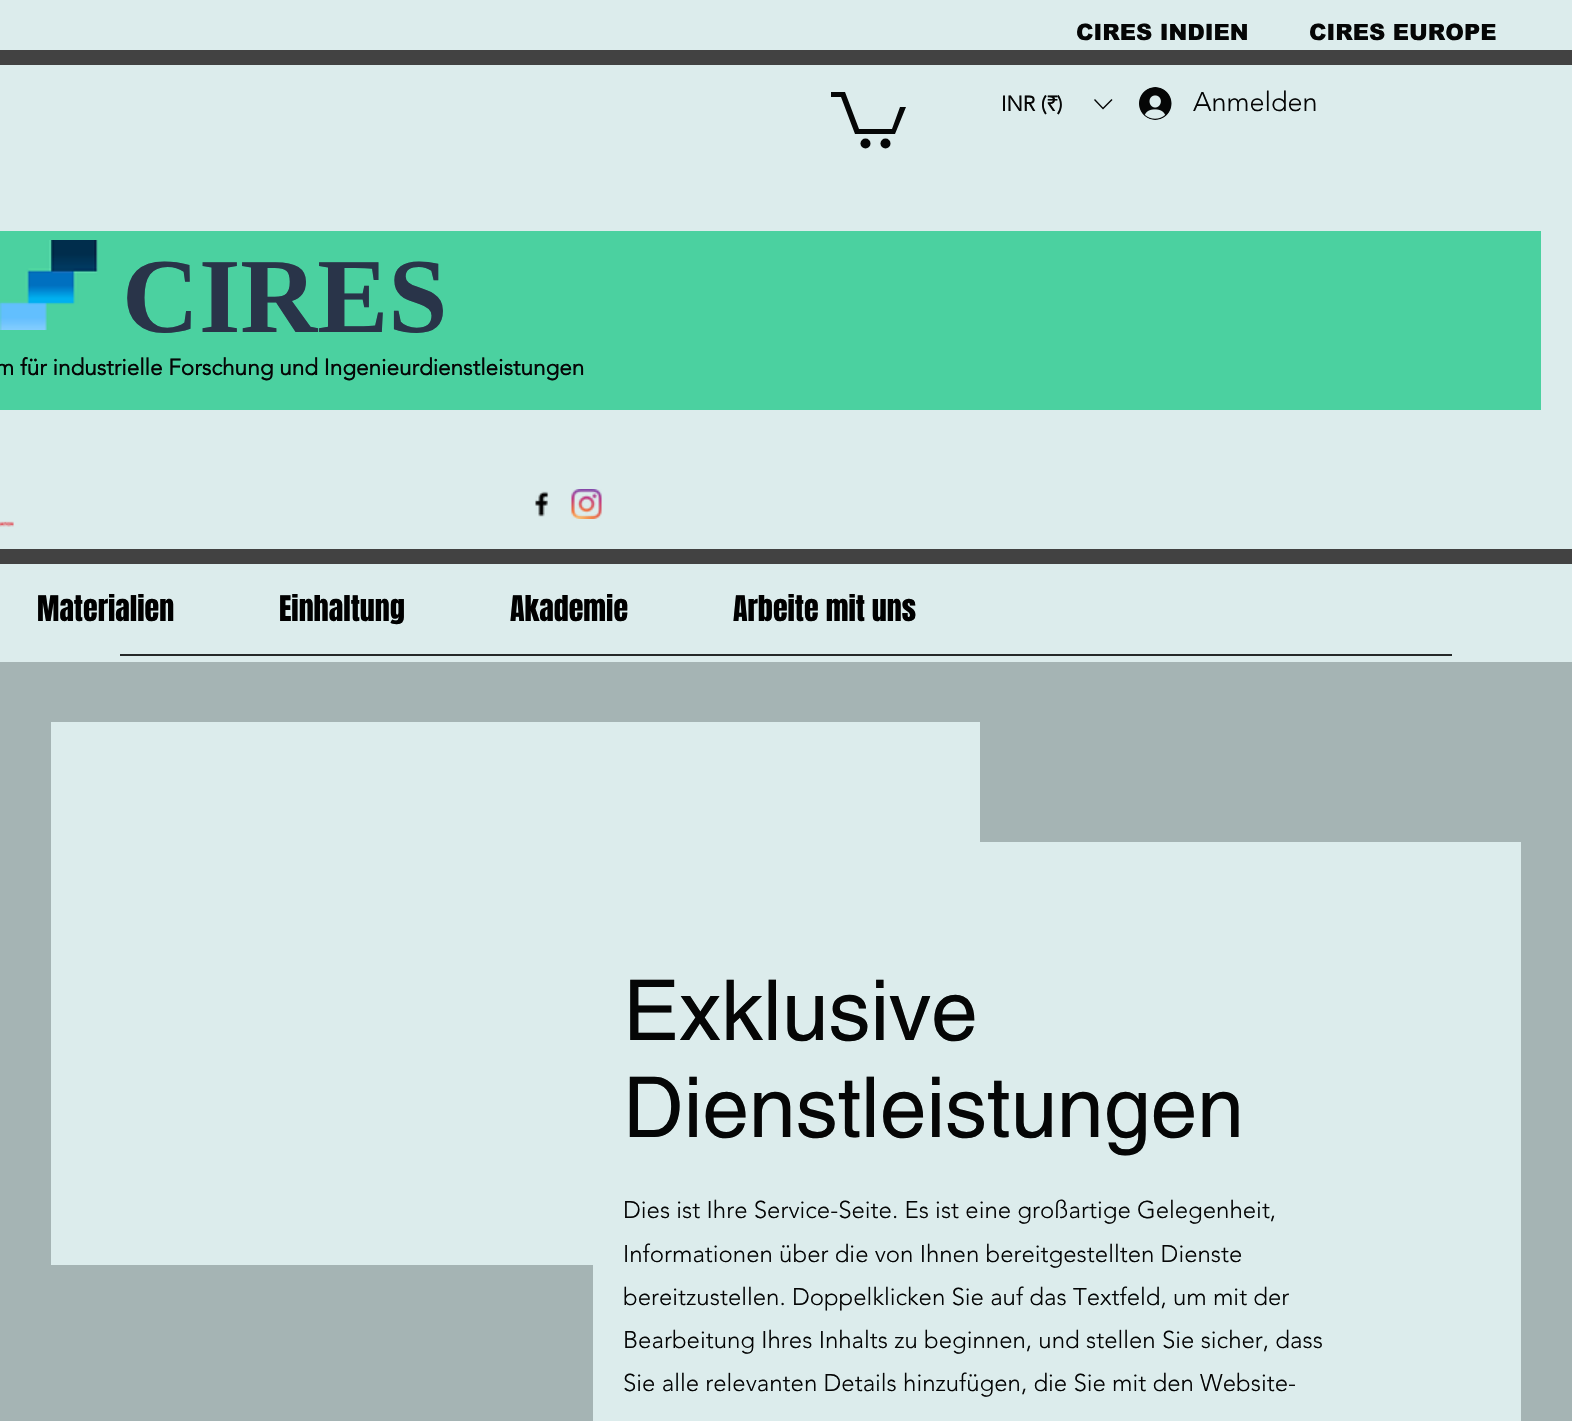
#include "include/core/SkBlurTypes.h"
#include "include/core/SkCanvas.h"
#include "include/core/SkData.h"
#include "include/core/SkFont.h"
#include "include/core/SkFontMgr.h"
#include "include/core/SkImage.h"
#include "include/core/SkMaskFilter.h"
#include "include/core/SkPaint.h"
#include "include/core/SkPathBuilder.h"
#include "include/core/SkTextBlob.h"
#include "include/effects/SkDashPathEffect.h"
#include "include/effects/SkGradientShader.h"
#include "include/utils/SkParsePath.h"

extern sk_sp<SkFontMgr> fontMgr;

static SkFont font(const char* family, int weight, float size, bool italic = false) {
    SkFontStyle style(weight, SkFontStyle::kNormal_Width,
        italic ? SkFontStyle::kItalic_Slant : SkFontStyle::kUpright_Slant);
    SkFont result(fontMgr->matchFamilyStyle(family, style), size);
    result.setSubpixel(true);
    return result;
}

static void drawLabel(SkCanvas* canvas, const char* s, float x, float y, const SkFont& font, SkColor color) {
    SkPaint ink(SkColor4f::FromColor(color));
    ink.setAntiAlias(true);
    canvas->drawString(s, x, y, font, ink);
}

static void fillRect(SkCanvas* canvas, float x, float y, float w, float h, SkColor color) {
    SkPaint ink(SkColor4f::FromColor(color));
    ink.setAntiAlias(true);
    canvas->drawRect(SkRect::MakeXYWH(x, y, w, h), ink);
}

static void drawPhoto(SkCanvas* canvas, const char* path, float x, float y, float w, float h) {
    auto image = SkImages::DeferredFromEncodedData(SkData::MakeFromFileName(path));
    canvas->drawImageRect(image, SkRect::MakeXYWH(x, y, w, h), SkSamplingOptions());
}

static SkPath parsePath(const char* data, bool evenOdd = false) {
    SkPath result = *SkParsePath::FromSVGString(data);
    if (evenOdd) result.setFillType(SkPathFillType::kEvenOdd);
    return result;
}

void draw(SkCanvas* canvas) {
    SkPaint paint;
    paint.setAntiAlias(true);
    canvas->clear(0xFFA5B4B4);
    fillRect(canvas, 0, 0, 1572, 662, 0xFFDCECEC);
    SkFont font1 = font("arial", 900, 22.5f);
    drawLabel(canvas, "CIRES INDIEN", 1076, 40, font1, 0xFF050606);
    drawLabel(canvas, "CIRES EUROPE", 1309, 40, font1, 0xFF050606);
    fillRect(canvas, 0, 50, 1572, 15, 0xFF424242);
    paint.setColor(0xFF050606);
    canvas->drawPath(parsePath("M906 107L895 134H855L841 97H831V92H845L859 129H892L900 107"), paint);
    canvas->drawCircle(885.5f, 143.5f, 5, paint);
    canvas->drawCircle(865.5f, 143.5f, 5, paint);
    SkFont font2 = font("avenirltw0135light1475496", 700, 21);
    drawLabel(canvas, "INR (₹)", 1001, 111, font2, 0xFF050606);
    canvas->drawPath(parsePath("M1111.5 99L1112.5 100L1103 109.5L1094 100L1095 99L1103 107.5Z", true), paint);
    drawPhoto(canvas, "assets/img1.png", 1139, 87, 33, 33);
    SkFont font3 = font("avenirltw0135light1475496", 300, 27);
    drawLabel(canvas, "Anmelden", 1193, 111, font3, 0xFF050606);
    fillRect(canvas, 0, 231, 1541, 179, 0xFF4BD1A0);
    SkFont font4 = font("Liberation Serif", 700, 106.5f);
    drawLabel(canvas, "CIRES", 122, 332, font4, 0xFF293449);
    drawPhoto(canvas, "assets/img2.png", 0, 240, 98, 90);
    SkFont font5 = font("avenirltw0135light1475496", 700, 22.5f);
    drawLabel(canvas, "m für industrielle Forschung und Ingenieurdienstleistungen", -5, 375, font5, 0xFF050606);
    drawPhoto(canvas, "assets/img3.png", 535, 491, 14, 26);
    drawPhoto(canvas, "assets/img4.png", 571, 489, 31, 30);
    drawPhoto(canvas, "assets/img5.png", 0, 521, 14, 6);
    fillRect(canvas, 0, 549, 1572, 15, 0xFF424242);
    SkFont font6 = font("Anton", 400, 30);
    drawLabel(canvas, "Materialien", 37, 621, font6, 0xFF000000);
    drawLabel(canvas, "Einhaltung", 279, 621, font6, 0xFF000000);
    drawLabel(canvas, "Akademie", 510, 621, font6, 0xFF000000);
    drawLabel(canvas, "Arbeite mit uns", 733, 621, font6, 0xFF000000);
    fillRect(canvas, 120, 654, 1332, 2, 0xFF252929);
    fillRect(canvas, 51, 722, 929, 543, 0xFFDCECEC);
    fillRect(canvas, 593, 842, 928, 579, 0xFFDCECEC);
    SkFont font7 = font("helvetica", 400, 84);
    drawLabel(canvas, "Exklusive", 623, 1040, font7, 0xFF050606);
    drawLabel(canvas, "Dienstleistungen", 623, 1137, font7, 0xFF050606);
    SkFont font8 = font("avenirltw0135light1475496", 300, 24);
    drawLabel(canvas, "Dies ist Ihre Service-Seite. Es ist eine großartige Gelegenheit,", 623, 1218, font8, 0xFF050606);
    drawLabel(canvas, "Informationen über die von Ihnen bereitgestellten Dienste", 623, 1262, font8, 0xFF050606);
    drawLabel(canvas, "bereitzustellen. Doppelklicken Sie auf das Textfeld, um mit der", 623, 1305, font8, 0xFF050606);
    drawLabel(canvas, "Bearbeitung Ihres Inhalts zu beginnen, und stellen Sie sicher, dass", 623, 1348, font8, 0xFF050606);
    drawLabel(canvas, "Sie alle relevanten Details hinzufügen, die Sie mit den Website-", 623, 1391, font8, 0xFF050606);
}
